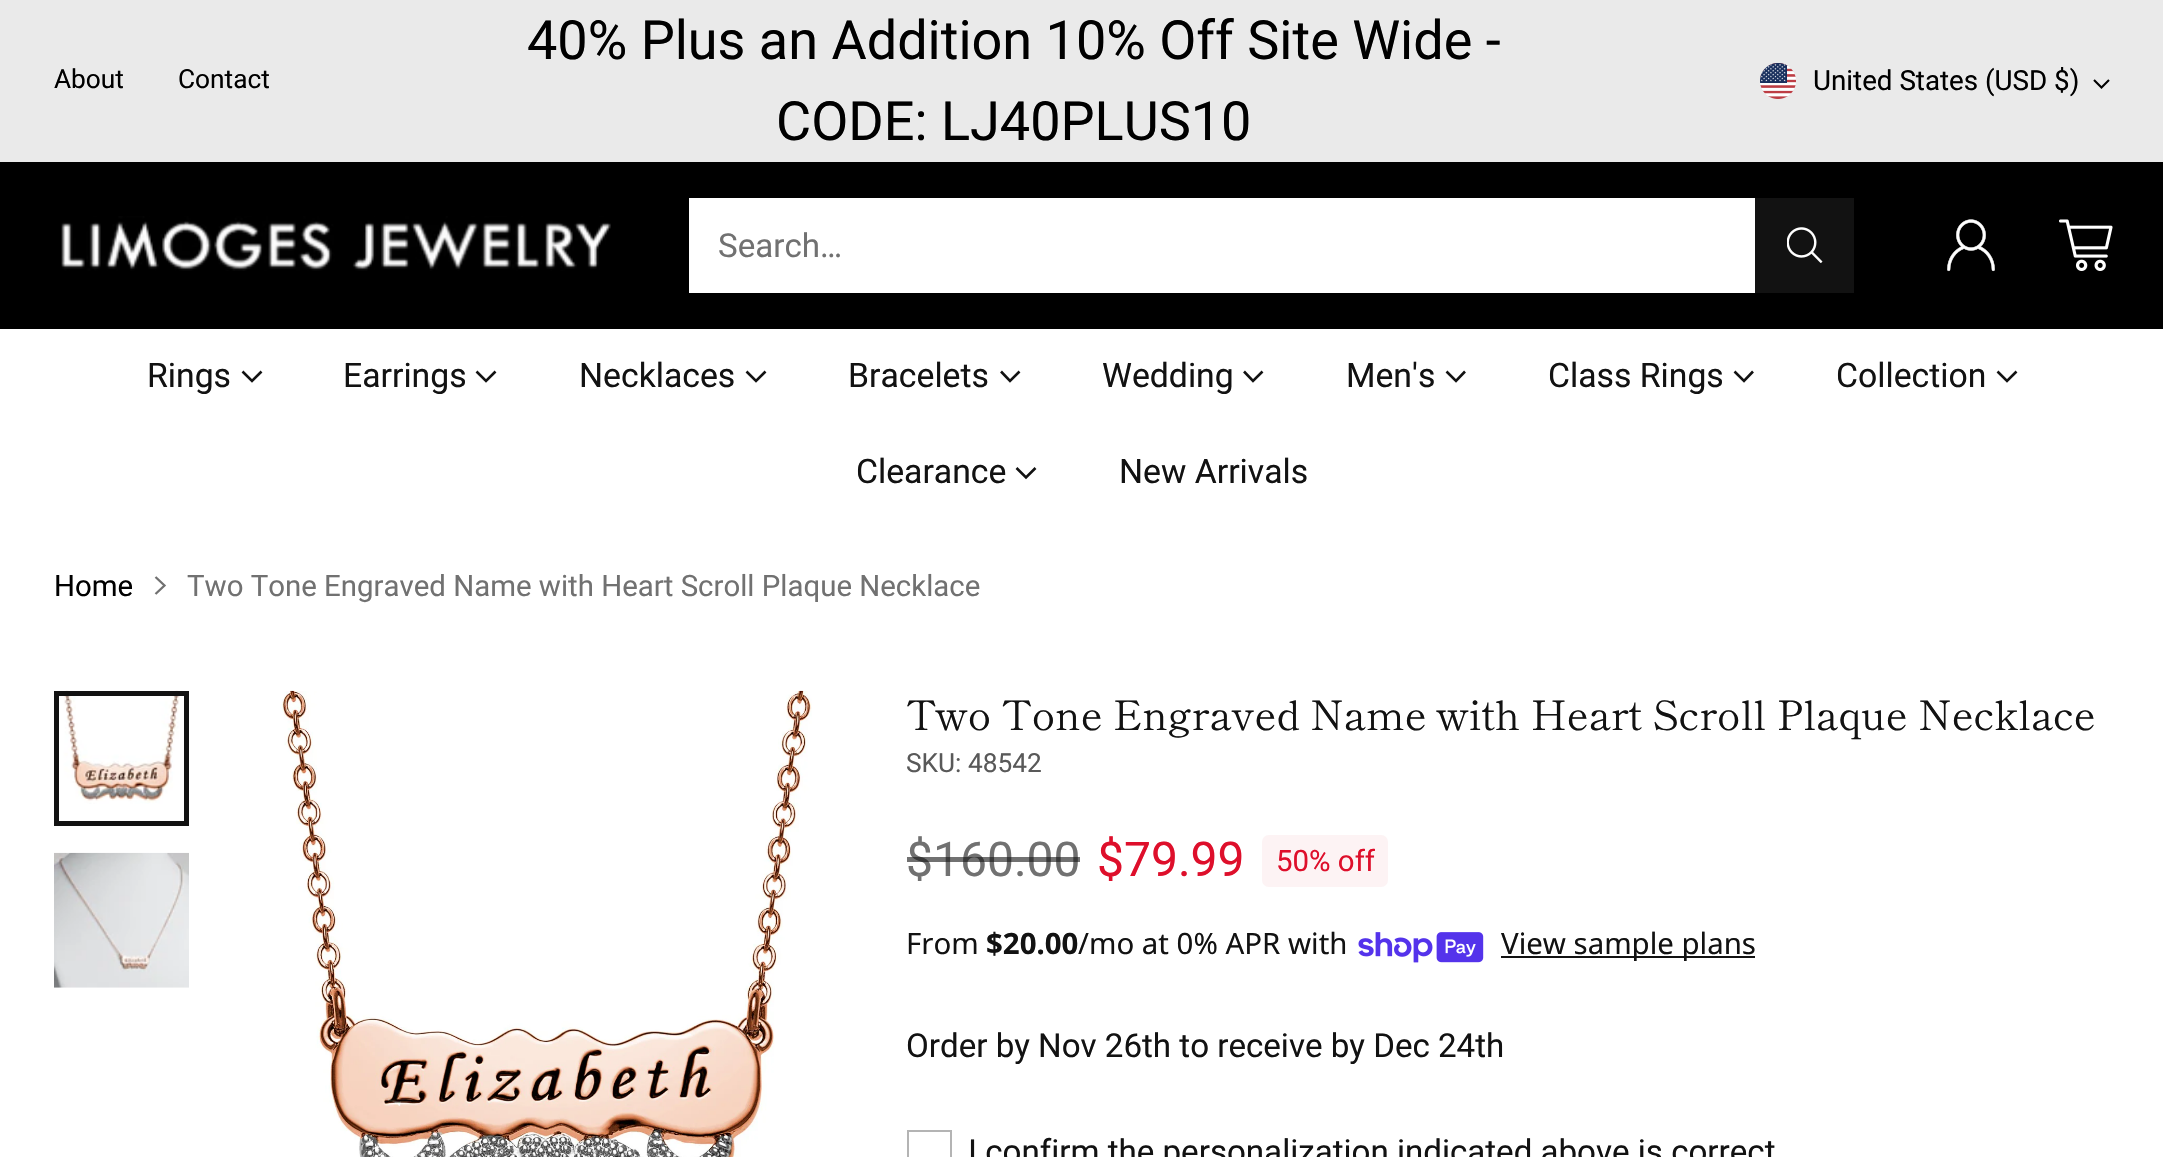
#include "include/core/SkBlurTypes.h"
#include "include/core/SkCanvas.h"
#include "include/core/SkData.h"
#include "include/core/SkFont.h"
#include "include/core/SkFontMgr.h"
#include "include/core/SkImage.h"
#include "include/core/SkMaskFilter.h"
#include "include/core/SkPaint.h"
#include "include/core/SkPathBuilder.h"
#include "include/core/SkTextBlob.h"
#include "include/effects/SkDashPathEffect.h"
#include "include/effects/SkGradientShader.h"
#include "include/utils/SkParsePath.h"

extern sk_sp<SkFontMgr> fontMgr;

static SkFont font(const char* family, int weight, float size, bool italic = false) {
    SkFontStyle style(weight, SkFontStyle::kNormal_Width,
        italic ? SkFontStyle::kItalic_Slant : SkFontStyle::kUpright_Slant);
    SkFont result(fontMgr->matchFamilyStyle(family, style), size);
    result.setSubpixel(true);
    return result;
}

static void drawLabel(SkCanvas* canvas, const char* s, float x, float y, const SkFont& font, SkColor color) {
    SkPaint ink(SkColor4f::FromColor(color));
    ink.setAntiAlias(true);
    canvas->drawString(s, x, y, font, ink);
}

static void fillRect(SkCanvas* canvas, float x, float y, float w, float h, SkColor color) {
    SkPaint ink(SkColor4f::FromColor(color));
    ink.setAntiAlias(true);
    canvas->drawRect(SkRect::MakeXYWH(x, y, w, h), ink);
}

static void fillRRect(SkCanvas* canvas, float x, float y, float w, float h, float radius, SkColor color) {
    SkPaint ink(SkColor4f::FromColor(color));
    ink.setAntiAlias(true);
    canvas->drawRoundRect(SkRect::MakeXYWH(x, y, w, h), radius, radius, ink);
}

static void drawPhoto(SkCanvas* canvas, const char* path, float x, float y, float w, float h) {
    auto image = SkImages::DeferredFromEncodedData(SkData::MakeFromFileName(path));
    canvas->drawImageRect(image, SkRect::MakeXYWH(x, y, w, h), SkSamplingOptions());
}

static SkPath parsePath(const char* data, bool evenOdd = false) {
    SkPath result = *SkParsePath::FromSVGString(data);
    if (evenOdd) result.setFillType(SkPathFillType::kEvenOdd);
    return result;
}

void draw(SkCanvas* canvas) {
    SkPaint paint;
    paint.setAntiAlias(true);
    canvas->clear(0xFFFFFFFF);
    fillRect(canvas, 0, 0, 2163, 162, 0xFFEAEAEA);
    SkFont font1 = font("Roboto", 400, 26.25f);
    drawLabel(canvas, "About", 54, 88, font1, 0xFF000000);
    drawLabel(canvas, "Contact", 178, 88, font1, 0xFF000000);
    SkFont font2 = font("Roboto", 400, 54);
    drawLabel(canvas, "40% Plus an Addition 10% Off Site Wide -", 527, 59, font2, 0xFF000000);
    drawLabel(canvas, "CODE: LJ40PLUS10", 776, 140, font2, 0xFF000000);
    drawPhoto(canvas, "assets/img1.png", 1760, 63, 36, 36);
    SkFont font3 = font("Roboto", 400, 27.75f);
    drawLabel(canvas, "United States (USD $)", 1813, 90, font3, 0xFF000000);
    paint.setStroke(true);
    paint.setStrokeWidth(2.1f);
    paint.setColor(0xFF000000);
    canvas->drawPath(parsePath("M2094 80L2101.5 87.5L2109 80"), paint);
    fillRect(canvas, 0, 162, 2163, 167, 0xFF000000);
    drawPhoto(canvas, "assets/img2.png", 61, 216, 550, 55);
    fillRect(canvas, 689, 198, 1066, 95, 0xFFFFFFFF);
    SkFont font4 = font("Roboto", 400, 33.1f);
    drawLabel(canvas, "Search…", 718, 257, font4, 0xFF717171);
    fillRect(canvas, 1755, 198, 99, 95, 0xFF121212);
    drawPhoto(canvas, "assets/img3.png", 1787, 227, 36, 36);
    drawPhoto(canvas, "assets/img4.png", 1947, 219, 48, 53);
    drawPhoto(canvas, "assets/img5.png", 2059, 219, 54, 52);
    SkFont font5 = font("Roboto", 400, 33.75f);
    drawLabel(canvas, "Rings", 147, 387, font5, 0xFF121212);
    paint.setStrokeWidth(2.6f);
    paint.setColor(0xFF121212);
    canvas->drawPath(parsePath("M242.5 371.5L252 381L261.5 371.5"), paint);
    drawLabel(canvas, "Earrings", 343, 387, font5, 0xFF121212);
    canvas->drawPath(parsePath("M476.5 371.5L486 381L495.5 371.5"), paint);
    drawLabel(canvas, "Necklaces", 579, 387, font5, 0xFF121212);
    canvas->drawPath(parsePath("M746.5 371.5L756 381L765.5 371.5"), paint);
    drawLabel(canvas, "Bracelets", 848, 387, font5, 0xFF121212);
    canvas->drawPath(parsePath("M1001 371.5L1010 381L1019.5 371.5"), paint);
    drawLabel(canvas, "Wedding", 1102, 387, font5, 0xFF121212);
    canvas->drawPath(parsePath("M1244 371.5L1253 381L1262.5 371.5"), paint);
    drawLabel(canvas, "Men's", 1346, 387, font5, 0xFF121212);
    canvas->drawPath(parsePath("M1446.5 371.5L1456 381L1465 371.5"), paint);
    drawLabel(canvas, "Class Rings", 1548, 387, font5, 0xFF121212);
    canvas->drawPath(parsePath("M1734.5 371.5L1744 381L1753 371.5"), paint);
    drawLabel(canvas, "Collection", 1836, 387, font5, 0xFF121212);
    canvas->drawPath(parsePath("M1997.5 371.5L2007 381L2016.5 371.5"), paint);
    drawLabel(canvas, "Clearance", 856, 483, font5, 0xFF121212);
    canvas->drawPath(parsePath("M1016.5 468L1026 477.5L1035.5 468"), paint);
    drawLabel(canvas, "New Arrivals", 1119, 483, font5, 0xFF121212);
    SkFont font6 = font("Roboto", 400, 29.4f);
    drawLabel(canvas, "Home", 54, 596, font6, 0xFF000000);
    paint.setStrokeWidth(2.3f);
    paint.setColor(0xFF717171);
    canvas->drawPath(parsePath("M155.5 594L164.5 585.5L155.5 577"), paint);
    drawLabel(canvas, "Two Tone Engraved Name with Heart Scroll Plaque Necklace", 187, 596, font6, 0xFF717171);
    drawPhoto(canvas, "assets/img6.png", 63, 690, 117, 114);
    paint.setStrokeWidth(5);
    paint.setColor(0xFF121212);
    canvas->drawRect(SkRect::MakeXYWH(56.5f, 693.5f, 130, 130), paint);
    drawPhoto(canvas, "assets/img7.png", 54, 852, 135, 136);
    drawPhoto(canvas, "assets/img8.png", 280, 690, 532, 467);
    SkFont font7 = font("Shippori Mincho", 400, 40.5f);
    drawLabel(canvas, "Two Tone Engraved Name with Heart Scroll Plaque Necklace", 906, 730, font7, 0xFF121212);
    drawLabel(canvas, "SKU: 48542", 906, 772, font1, 0xFF595959);
    SkFont font8 = font("Roboto", 400, 48);
    drawLabel(canvas, "$160.00", 906, 876, font8, 0xFF717171);
    fillRect(canvas, 907, 857, 173, 5, 0x99121212);
    drawLabel(canvas, "$79.99", 1097, 876, font8, 0xFFDE0F2B);
    fillRRect(canvas, 1262, 835, 126, 52, 7, 0xFFFDF3F4);
    drawLabel(canvas, "50% off", 1276, 871, font6, 0xFFDE0F2B);
    SkFont font9 = font("Noto Sans", 400, 29.4f);
    drawLabel(canvas, "From", 906, 954, font9, 0xFF121212);
    SkFont font10 = font("Noto Sans", 700, 29.4f);
    drawLabel(canvas, "$20.00", 986, 954, font10, 0xFF121212);
    drawLabel(canvas, "/mo at 0% APR with", 1078, 954, font9, 0xFF121212);
    drawPhoto(canvas, "assets/img9.png", 1358, 932, 126, 31);
    fillRect(canvas, 1501, 956, 254, 2, 0xFF121212);
    drawLabel(canvas, "View sample plans", 1501, 954, font9, 0xFF121212);
    drawLabel(canvas, "Order by Nov 26th to receive by Dec 24th", 906, 1057, font4, 0xFF121212);
    paint.setStrokeWidth(2);
    paint.setColor(0xFFB4B4B4);
    canvas->drawRect(SkRect::MakeXYWH(908, 1131, 43, 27), paint);
    drawLabel(canvas, "I confirm the personalization indicated above is correct", 968, 1163, font4, 0xFF121212);
}
